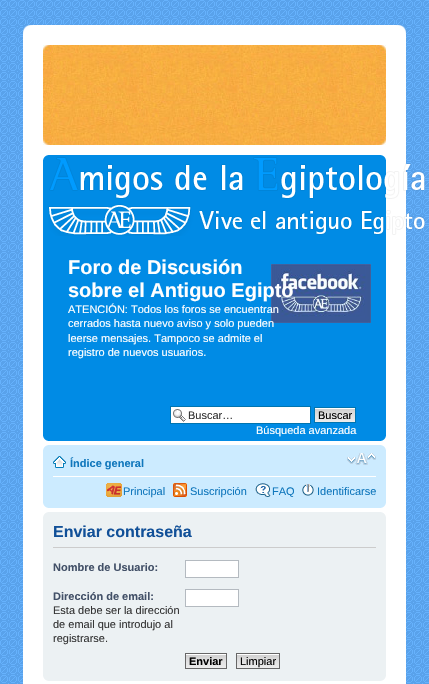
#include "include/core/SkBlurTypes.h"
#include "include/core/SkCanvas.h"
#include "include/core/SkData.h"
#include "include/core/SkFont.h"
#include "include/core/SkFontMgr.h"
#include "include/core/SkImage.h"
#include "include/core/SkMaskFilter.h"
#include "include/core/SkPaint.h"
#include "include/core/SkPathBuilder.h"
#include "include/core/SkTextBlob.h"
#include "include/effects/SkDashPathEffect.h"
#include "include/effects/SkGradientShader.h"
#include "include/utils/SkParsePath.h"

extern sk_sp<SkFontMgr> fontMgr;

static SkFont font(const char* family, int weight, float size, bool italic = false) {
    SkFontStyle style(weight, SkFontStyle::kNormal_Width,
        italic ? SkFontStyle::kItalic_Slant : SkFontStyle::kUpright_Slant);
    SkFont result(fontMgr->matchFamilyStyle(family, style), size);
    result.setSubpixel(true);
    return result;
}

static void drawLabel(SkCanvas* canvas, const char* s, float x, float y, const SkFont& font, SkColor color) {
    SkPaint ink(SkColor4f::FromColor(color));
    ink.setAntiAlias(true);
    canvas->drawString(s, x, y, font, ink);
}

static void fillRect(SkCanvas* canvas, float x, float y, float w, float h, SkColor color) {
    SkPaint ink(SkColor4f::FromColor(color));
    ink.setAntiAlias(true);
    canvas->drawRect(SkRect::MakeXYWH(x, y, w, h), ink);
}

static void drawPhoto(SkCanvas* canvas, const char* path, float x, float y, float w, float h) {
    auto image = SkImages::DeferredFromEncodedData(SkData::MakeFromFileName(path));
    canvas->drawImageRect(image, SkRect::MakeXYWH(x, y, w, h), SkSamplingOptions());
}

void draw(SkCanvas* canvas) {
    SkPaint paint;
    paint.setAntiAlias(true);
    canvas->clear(0xFFFFFFFF);
    drawPhoto(canvas, "assets/img1.png", 0, 0, 429, 684);
    fillRect(canvas, 23, 25, 383, 659, 0xFFFFFFFF);
    drawPhoto(canvas, "assets/img2.png", 23, 25, 10, 10);
    drawPhoto(canvas, "assets/img3.png", 396, 25, 10, 10);
    drawPhoto(canvas, "assets/img4.png", 53, 45, 323, 100);
    drawPhoto(canvas, "assets/img5.png", 43, 45, 10, 100);
    drawPhoto(canvas, "assets/img6.png", 376, 45, 10, 100);
    fillRect(canvas, 43, 155, 343, 286, 0xFF008BE5);
    drawPhoto(canvas, "assets/img9.png", 43, 155, 6, 5);
    drawPhoto(canvas, "assets/img10.png", 380, 155, 6, 5);
    drawPhoto(canvas, "assets/img7.png", 48, 157, 378, 79);
    drawPhoto(canvas, "assets/img8.png", 271, 264, 100, 59);
    SkFont font1 = font("Liberation Sans", 700, 20);
    drawLabel(canvas, "Foro de Discusión", 68, 274, font1, 0xFFFFFFFF);
    drawLabel(canvas, "sobre el Antiguo Egipto", 68, 297, font1, 0xFFFFFFFF);
    SkFont font2 = font("Liberation Sans", 400, 11);
    drawLabel(canvas, "ATENCIÓN: Todos los foros se encuentran", 68, 313, font2, 0xFFFFFFFF);
    drawLabel(canvas, "cerrados hasta nuevo aviso y solo pueden", 68, 327, font2, 0xFFFFFFFF);
    drawLabel(canvas, "leerse mensajes. Tampoco se admite el", 68, 342, font2, 0xFFFFFFFF);
    drawLabel(canvas, "registro de nuevos usuarios.", 68, 356, font2, 0xFFFFFFFF);
    fillRect(canvas, 171, 407, 139, 16, 0xFFFFFFFF);
    drawPhoto(canvas, "assets/img11.png", 173, 409, 13, 13);
    paint.setStroke(true);
    paint.setStrokeWidth(1);
    paint.setColor(0xFF0075B0);
    canvas->drawRect(SkRect::MakeXYWH(170.5f, 406.5f, 140, 17), paint);
    drawLabel(canvas, "Buscar…", 188, 419, font2, 0xFF333333);
    drawPhoto(canvas, "assets/img12.png", 315, 408, 40, 14);
    canvas->drawRect(SkRect::MakeXYWH(314.5f, 407.5f, 41, 15), paint);
    drawLabel(canvas, "Buscar", 318, 419, font2, 0xFF000000);
    drawLabel(canvas, "Búsqueda avanzada", 256, 434, font2, 0xFFFFFFFF);
    drawPhoto(canvas, "assets/img13.png", 43, 436, 5, 5);
    drawPhoto(canvas, "assets/img14.png", 381, 436, 5, 5);
    fillRect(canvas, 43, 445, 343, 63, 0xFFCCEBFF);
    drawPhoto(canvas, "assets/img15.png", 43, 445, 5, 5);
    drawPhoto(canvas, "assets/img16.png", 381, 445, 5, 5);
    fillRect(canvas, 53, 476, 323, 1, 0xFFFFFFFF);
    drawPhoto(canvas, "assets/img17.png", 53, 456, 13, 12);
    SkFont font3 = font("Liberation Sans", 700, 11);
    drawLabel(canvas, "Índice general", 70, 467, font3, 0xFF1077BC);
    drawPhoto(canvas, "assets/img18.png", 347, 453, 29, 12);
    drawPhoto(canvas, "assets/img19.png", 106, 483, 16, 14);
    drawLabel(canvas, "Principal", 123, 495, font2, 0xFF1077BC);
    drawPhoto(canvas, "assets/img20.png", 173, 483, 14, 14);
    drawLabel(canvas, "Suscripción", 190, 495, font2, 0xFF1077BC);
    drawPhoto(canvas, "assets/img21.png", 255, 483, 16, 14);
    drawLabel(canvas, "FAQ", 272, 495, font2, 0xFF1077BC);
    drawPhoto(canvas, "assets/img22.png", 302, 484, 12, 12);
    drawLabel(canvas, "Identificarse", 317, 495, font2, 0xFF1077BC);
    drawPhoto(canvas, "assets/img23.png", 43, 503, 5, 5);
    drawPhoto(canvas, "assets/img24.png", 381, 503, 5, 5);
    fillRect(canvas, 43, 512, 343, 169, 0xFFECF1F3);
    drawPhoto(canvas, "assets/img25.png", 43, 512, 5, 5);
    drawPhoto(canvas, "assets/img26.png", 381, 512, 5, 5);
    fillRect(canvas, 53, 547, 323, 1, 0xFFCCCCCC);
    SkFont font4 = font("Liberation Sans", 700, 16);
    drawLabel(canvas, "Enviar contraseña", 53, 537, font4, 0xFF115098);
    drawLabel(canvas, "Nombre de Usuario:", 53, 571, font3, 0xFF425067);
    paint.setStroke(false);
    paint.setColor(0xFFFFFFFF);
    canvas->drawRect(SkRect::MakeXYWH(185.5f, 560.5f, 53, 17), paint);
    paint.setStroke(true);
    paint.setColor(0xFFB4BAC0);
    canvas->drawRect(SkRect::MakeXYWH(185.5f, 560.5f, 53, 17), paint);
    drawLabel(canvas, "Dirección de email:", 53, 600, font3, 0xFF425067);
    drawLabel(canvas, "Esta debe ser la dirección", 53, 614, font2, 0xFF333333);
    drawLabel(canvas, "de email que introdujo al", 53, 628, font2, 0xFF333333);
    drawLabel(canvas, "registrarse.", 53, 642, font2, 0xFF333333);
    paint.setStroke(false);
    paint.setColor(0xFFFFFFFF);
    canvas->drawRect(SkRect::MakeXYWH(185.5f, 589.5f, 53, 17), paint);
    paint.setStroke(true);
    paint.setColor(0xFFB4BAC0);
    canvas->drawRect(SkRect::MakeXYWH(185.5f, 589.5f, 53, 17), paint);
    drawPhoto(canvas, "assets/img12.png", 186, 654, 40, 14);
    paint.setColor(0xFF666666);
    canvas->drawRect(SkRect::MakeXYWH(185.5f, 653.5f, 41, 15), paint);
    drawLabel(canvas, "Enviar", 189, 665, font3, 0xFF000000);
    drawPhoto(canvas, "assets/img27.png", 237, 654, 42, 14);
    canvas->drawRect(SkRect::MakeXYWH(236.5f, 653.5f, 43, 15), paint);
    drawLabel(canvas, "Limpiar", 240, 665, font2, 0xFF000000);
    drawPhoto(canvas, "assets/img28.png", 43, 676, 5, 5);
    drawPhoto(canvas, "assets/img29.png", 381, 676, 5, 5);
}
